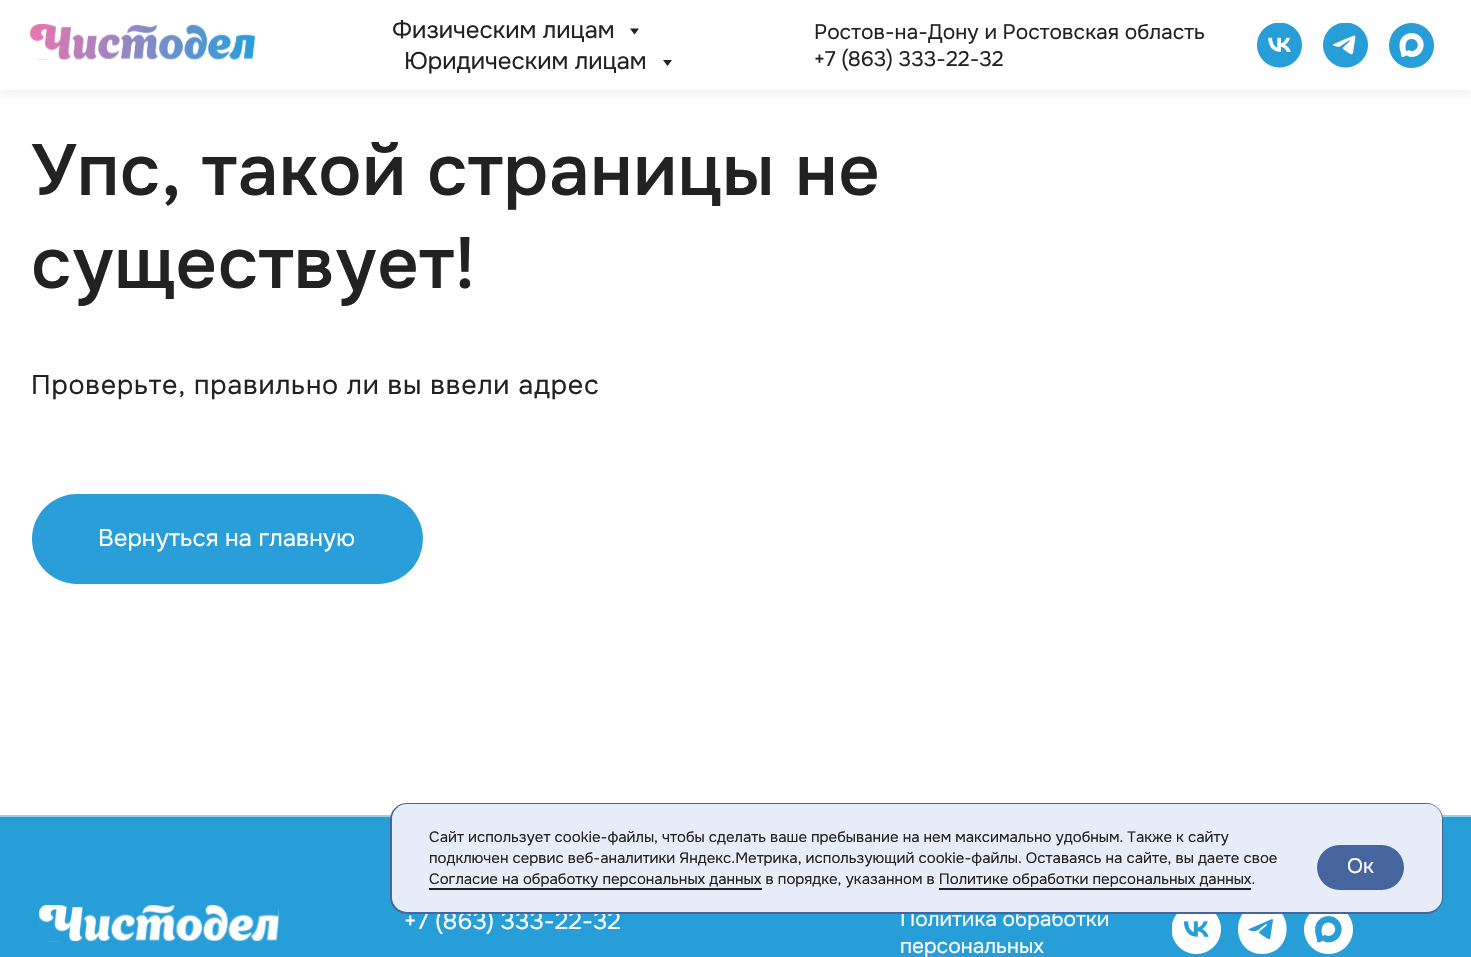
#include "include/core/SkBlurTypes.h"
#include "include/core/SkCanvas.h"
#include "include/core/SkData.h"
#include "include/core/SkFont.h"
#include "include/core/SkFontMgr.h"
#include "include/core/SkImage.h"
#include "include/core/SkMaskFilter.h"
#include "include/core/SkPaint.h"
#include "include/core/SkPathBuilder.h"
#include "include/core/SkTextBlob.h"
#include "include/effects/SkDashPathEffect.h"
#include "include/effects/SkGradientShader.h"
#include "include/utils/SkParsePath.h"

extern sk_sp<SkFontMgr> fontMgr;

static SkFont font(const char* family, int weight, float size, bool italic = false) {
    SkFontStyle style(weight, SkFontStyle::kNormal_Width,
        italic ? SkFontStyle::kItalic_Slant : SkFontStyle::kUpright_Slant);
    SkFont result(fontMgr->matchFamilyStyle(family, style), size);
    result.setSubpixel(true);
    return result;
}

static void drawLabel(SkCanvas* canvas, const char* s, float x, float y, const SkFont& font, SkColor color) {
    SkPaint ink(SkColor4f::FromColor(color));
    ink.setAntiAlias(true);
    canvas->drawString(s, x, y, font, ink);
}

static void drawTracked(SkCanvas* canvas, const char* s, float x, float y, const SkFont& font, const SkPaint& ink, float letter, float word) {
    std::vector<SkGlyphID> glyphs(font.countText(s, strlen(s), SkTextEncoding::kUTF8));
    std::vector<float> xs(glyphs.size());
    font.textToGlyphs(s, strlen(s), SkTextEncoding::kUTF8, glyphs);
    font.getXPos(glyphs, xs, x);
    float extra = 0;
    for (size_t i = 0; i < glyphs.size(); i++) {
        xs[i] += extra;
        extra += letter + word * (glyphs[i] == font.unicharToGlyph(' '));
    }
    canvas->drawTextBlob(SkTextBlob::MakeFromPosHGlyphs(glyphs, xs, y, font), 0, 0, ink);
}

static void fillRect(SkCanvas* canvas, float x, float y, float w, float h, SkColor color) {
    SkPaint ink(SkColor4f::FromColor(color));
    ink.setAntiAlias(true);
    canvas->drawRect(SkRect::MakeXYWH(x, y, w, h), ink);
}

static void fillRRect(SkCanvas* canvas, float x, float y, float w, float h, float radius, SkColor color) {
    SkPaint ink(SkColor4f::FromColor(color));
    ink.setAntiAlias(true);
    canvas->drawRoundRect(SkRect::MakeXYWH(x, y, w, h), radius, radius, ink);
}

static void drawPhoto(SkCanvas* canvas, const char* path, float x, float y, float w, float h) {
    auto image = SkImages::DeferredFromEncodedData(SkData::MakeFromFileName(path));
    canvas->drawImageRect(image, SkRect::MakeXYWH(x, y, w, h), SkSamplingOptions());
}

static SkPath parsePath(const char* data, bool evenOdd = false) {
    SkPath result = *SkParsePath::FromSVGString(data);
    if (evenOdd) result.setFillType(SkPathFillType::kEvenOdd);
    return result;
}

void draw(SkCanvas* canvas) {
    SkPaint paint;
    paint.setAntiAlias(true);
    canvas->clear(0xFFFFFFFF);
    canvas->save();
    canvas->clipRect(SkRect::MakeXYWH(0, 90, 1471, 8));
    paint.setColor(0x1A444649);
    paint.setMaskFilter(SkMaskFilter::MakeBlur(kNormal_SkBlurStyle, 7.5f));
    canvas->drawRect(SkRect::MakeXYWH(0, 2, 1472, 90), paint);
    paint.setMaskFilter(nullptr);
    canvas->restore();
    drawPhoto(canvas, "assets/img1.png", 30, 24, 225, 36);
    SkFont font1 = font("Onest", 400, 24);
    drawLabel(canvas, "Физическим лицам", 392, 38, font1, 0xFF222222);
    paint.setColor(0xFF222222);
    canvas->drawPath(parsePath("M630 28.5H639L634.5 34.5ZM663 60H672L667.5 66Z"), paint);
    drawLabel(canvas, "Юридическим лицам", 404, 69, font1, 0xFF222222);
    SkFont font2 = font("Onest", 400, 21);
    drawLabel(canvas, "Ростов-на-Дону и Ростовская область", 814, 39, font2, 0xFF222222);
    drawLabel(canvas, "+7 (863) 333-22-32", 814, 66, font2, 0xFF222222);
    drawPhoto(canvas, "assets/img2.png", 1257, 23, 45, 45);
    drawPhoto(canvas, "assets/img3.png", 1323, 23, 45, 45);
    drawPhoto(canvas, "assets/img4.png", 1389, 23, 45, 45);
    SkFont font3 = font("Onest", 500, 72);
    drawTracked(canvas, "Упс, такой страницы не", 31, 195, font3, paint, 0.75f, 0);
    drawTracked(canvas, "существует!", 31, 288, font3, paint, 0.75f, 0);
    SkFont font4 = font("Onest", 400, 27);
    drawTracked(canvas, "Проверьте, правильно ли вы ввели адрес", 31, 394, font4, paint, 0.75f, 0);
    fillRRect(canvas, 32, 494, 391, 90, 45, 0xFF299ED9);
    drawLabel(canvas, "Вернуться на главную", 98, 546, font1, 0xFFFFFFFF);
    fillRect(canvas, 0, 815, 1471, 2, 0xFF94CFEC);
    fillRect(canvas, 0, 817, 1471, 140, 0xFF289ED9);
    drawLabel(canvas, "+7 (863) 333-22-32", 404, 929, font1, 0xFFFFFFFF);
    drawLabel(canvas, "Политика обработки", 900, 926, font2, 0xFFFFFFFF);
    paint.setColor(0xFFFFFFFF);
    canvas->drawPath(parsePath("M1262 954C1295 954 1295 904 1262 904C1230 904 1230 954 1262 954ZM1273 920C1273 920 1273 919 1272 919L1249 929L1248 930L1252 931C1258 933 1261 926 1267 924C1268 926 1258 931 1259 933L1265 937C1271 941 1270 939 1271 933Z", true), paint);
    paint.setStroke(true);
    paint.setStrokeWidth(2);
    paint.setColor(0xFF46659E);
    canvas->drawRoundRect(SkRect::MakeXYWH(391, 804, 1051, 109), 16, 16, paint);
    fillRRect(canvas, 392, 804, 1050, 108, 15, 0xFFE7EDF8);
    SkFont font5 = font("Onest", 400, 15);
    drawLabel(canvas, "Сайт использует cookie-файлы, чтобы сделать ваше пребывание на нем максимально удобным. Также к cайту", 429, 842, font5, 0xFF222222);
    drawLabel(canvas, "подключен сервис веб-аналитики Яндекс.Метрика, использующий cookie-файлы. Оставаясь на сайте, вы даете свое", 429, 863, font5, 0xFF222222);
    drawLabel(canvas, "Согласие на обработку персональных данных в порядке, указанном в Политике обработки персональных данных.", 429, 884, font5, 0xFF222222);
    fillRect(canvas, 429, 888, 333, 2, 0xFF222222);
    fillRect(canvas, 939, 888, 312, 2, 0xFF222222);
    fillRRect(canvas, 1317, 845, 87, 45, 22.5f, 0xFF46659E);
    drawLabel(canvas, "Oк", 1347, 873, font2, 0xFFFFFFFF);
    drawPhoto(canvas, "assets/img5.png", 39, 905, 240, 37);
    drawLabel(canvas, "персональных", 900, 953, font2, 0xFFFFFFFF);
    drawPhoto(canvas, "assets/img6.png", 1172, 914, 49, 40);
    drawPhoto(canvas, "assets/img7.png", 1304, 914, 49, 40);
}
